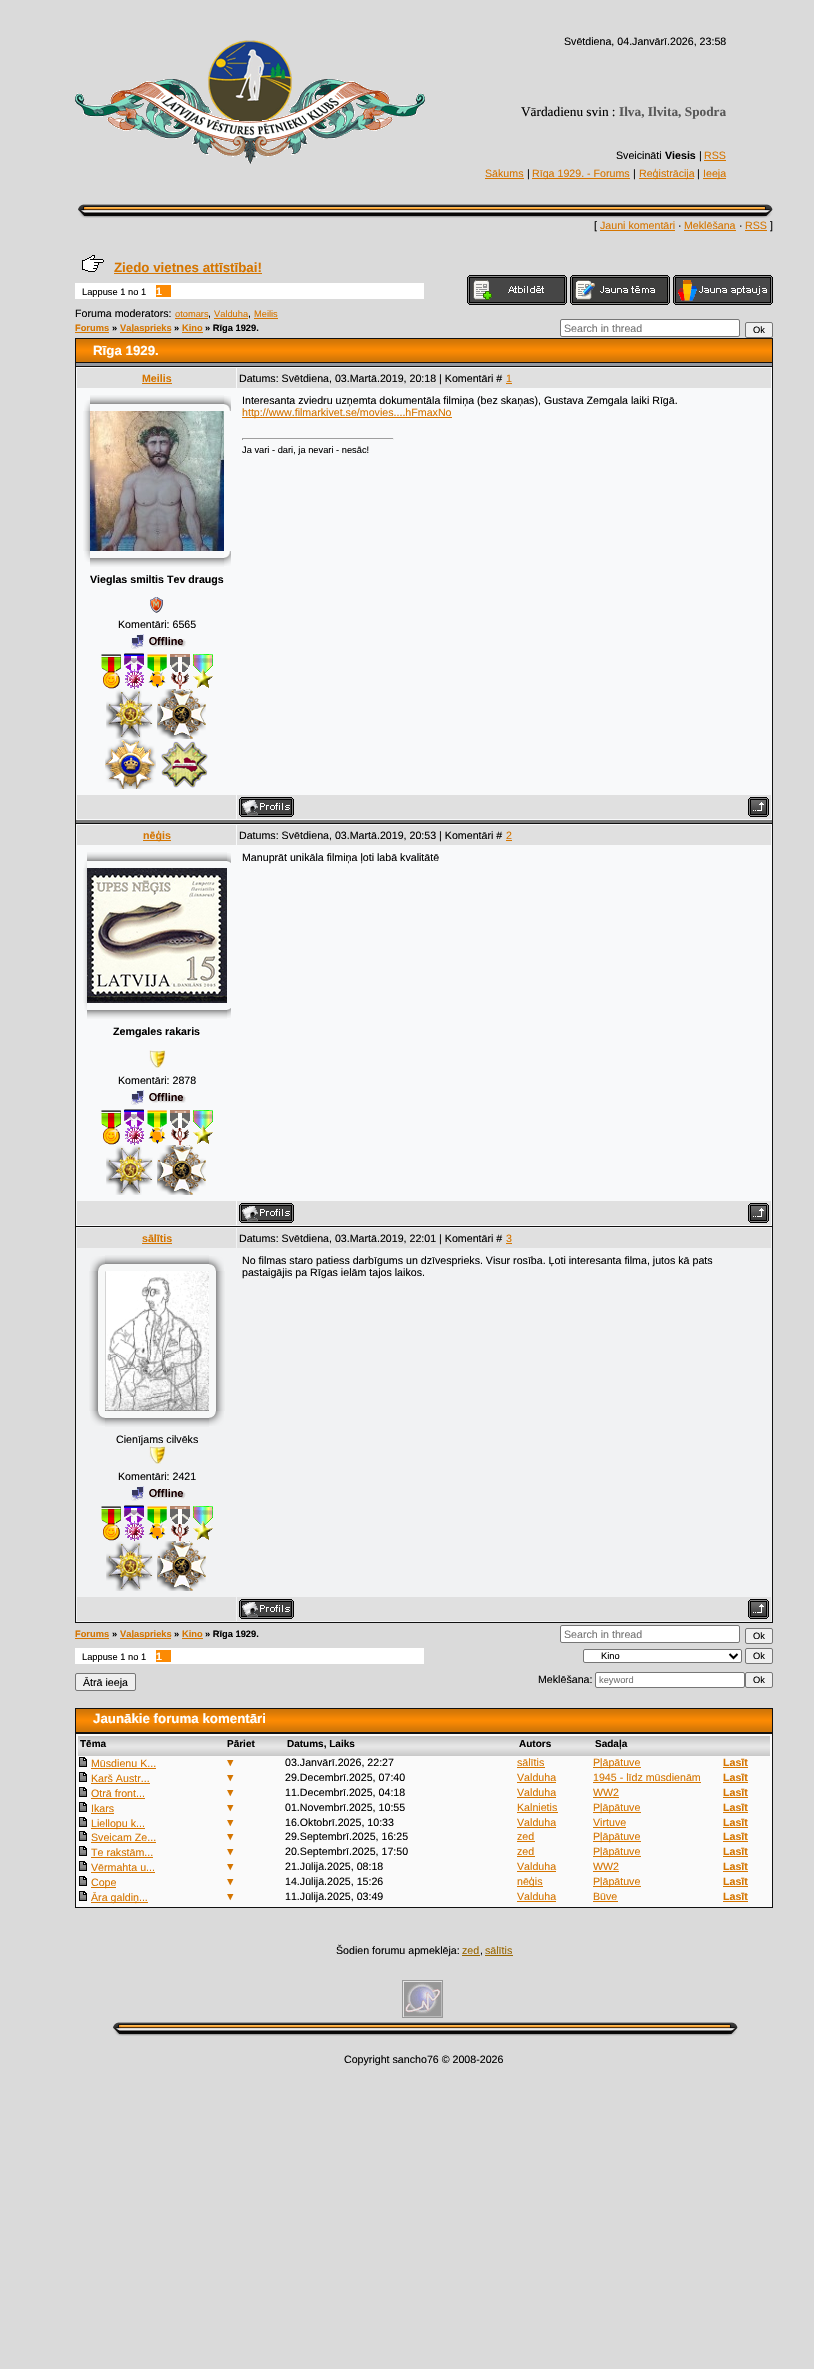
#include "include/core/SkBlurTypes.h"
#include "include/core/SkCanvas.h"
#include "include/core/SkData.h"
#include "include/core/SkFont.h"
#include "include/core/SkFontMgr.h"
#include "include/core/SkImage.h"
#include "include/core/SkMaskFilter.h"
#include "include/core/SkPaint.h"
#include "include/core/SkPathBuilder.h"
#include "include/core/SkTextBlob.h"
#include "include/effects/SkDashPathEffect.h"
#include "include/effects/SkGradientShader.h"
#include "include/utils/SkParsePath.h"

extern sk_sp<SkFontMgr> fontMgr;

static SkFont font(const char* family, int weight, float size, bool italic = false) {
    SkFontStyle style(weight, SkFontStyle::kNormal_Width,
        italic ? SkFontStyle::kItalic_Slant : SkFontStyle::kUpright_Slant);
    SkFont result(fontMgr->matchFamilyStyle(family, style), size);
    result.setSubpixel(true);
    return result;
}

static void drawLabel(SkCanvas* canvas, const char* s, float x, float y, const SkFont& font, SkColor color) {
    SkPaint ink(SkColor4f::FromColor(color));
    ink.setAntiAlias(true);
    canvas->drawString(s, x, y, font, ink);
}

static void fillRect(SkCanvas* canvas, float x, float y, float w, float h, SkColor color) {
    SkPaint ink(SkColor4f::FromColor(color));
    ink.setAntiAlias(true);
    canvas->drawRect(SkRect::MakeXYWH(x, y, w, h), ink);
}

static void drawPhoto(SkCanvas* canvas, const char* path, float x, float y, float w, float h) {
    auto image = SkImages::DeferredFromEncodedData(SkData::MakeFromFileName(path));
    canvas->drawImageRect(image, SkRect::MakeXYWH(x, y, w, h), SkSamplingOptions());
}

static SkPath parsePath(const char* data, bool evenOdd = false) {
    SkPath result = *SkParsePath::FromSVGString(data);
    if (evenOdd) result.setFillType(SkPathFillType::kEvenOdd);
    return result;
}

void draw(SkCanvas* canvas) {
    SkPaint paint;
    paint.setAntiAlias(true);
    canvas->clear(0xFFDADADA);
    drawPhoto(canvas, "assets/img1.png", 75, 40, 350, 124);
    SkFont font1 = font("Liberation Sans", 400, 10.65f);
    drawLabel(canvas, "Svētdiena, 04.Janvārī.2026, 23:58", 564, 45, font1, 0xFF000000);
    SkFont font2 = font("Liberation Serif", 400, 13.3f);
    drawLabel(canvas, "Vārdadienu svin :", 521, 116, font2, 0xFF000000);
    SkFont font3 = font("Liberation Serif", 700, 13.3f);
    drawLabel(canvas, "Ilva, Ilvita, Spodra", 619, 116, font3, 0xFF585858);
    drawLabel(canvas, "Sveicināti", 616, 159, font1, 0xFF000000);
    SkFont font4 = font("Liberation Sans", 700, 10.65f);
    drawLabel(canvas, "Viesis", 665, 159, font4, 0xFF000000);
    drawLabel(canvas, "|", 699, 159, font1, 0xFF000000);
    drawLabel(canvas, "RSS", 704, 159, font1, 0xFFD57500);
    fillRect(canvas, 704, 160, 22, 1, 0xFFD57500);
    drawLabel(canvas, "Sākums", 485, 177, font1, 0xFFD57500);
    fillRect(canvas, 485, 178, 39, 1, 0xFFD57500);
    drawLabel(canvas, "|", 527, 177, font1, 0xFF000000);
    fillRect(canvas, 532, 178, 98, 1, 0xFFD57500);
    drawLabel(canvas, "Rīga 1929. - Forums", 532, 177, font1, 0xFFD57500);
    drawLabel(canvas, "|", 633, 177, font1, 0xFF000000);
    fillRect(canvas, 639, 178, 55, 1, 0xFFD57500);
    drawLabel(canvas, "Reģistrācija", 639, 177, font1, 0xFFD57500);
    drawLabel(canvas, "|", 697, 177, font1, 0xFF000000);
    fillRect(canvas, 703, 178, 23, 1, 0xFFD57500);
    drawLabel(canvas, "Ieeja", 703, 177, font1, 0xFFD57500);
    drawPhoto(canvas, "assets/img2.png", 78, 204, 9, 14);
    drawPhoto(canvas, "assets/img3.png", 87, 204, 675, 14);
    drawPhoto(canvas, "assets/img4.png", 762, 204, 11, 14);
    drawLabel(canvas, "[", 594, 229, font1, 0xFF000000);
    drawLabel(canvas, "Jauni komentāri", 600, 229, font1, 0xFFD57500);
    fillRect(canvas, 600, 230, 75, 1, 0xFFD57500);
    drawLabel(canvas, "·", 678, 229, font1, 0xFF000000);
    drawLabel(canvas, "Meklēšana", 684, 229, font1, 0xFFD57500);
    fillRect(canvas, 684, 230, 52, 1, 0xFFD57500);
    drawLabel(canvas, "·", 739, 229, font1, 0xFF000000);
    drawLabel(canvas, "RSS", 745, 229, font1, 0xFFD57500);
    fillRect(canvas, 745, 230, 22, 1, 0xFFD57500);
    drawLabel(canvas, "]", 770, 229, font1, 0xFF000000);
    drawPhoto(canvas, "assets/img5.png", 82, 255, 22, 17);
    SkFont font5 = font("Liberation Sans", 700, 13.3f);
    drawLabel(canvas, "Ziedo vietnes attīstībai!", 114, 272, font5, 0xFFD57500);
    fillRect(canvas, 114, 273, 148, 1, 0xFFD57500);
    fillRect(canvas, 75, 283, 349, 16, 0xFFFFFFFF);
    SkFont font6 = font("Liberation Sans", 400, 9.3f);
    drawLabel(canvas, "Lappuse 1 no 1", 82, 295, font6, 0xFF000000);
    fillRect(canvas, 156, 285, 15, 12, 0xFFFC8A03);
    drawLabel(canvas, "1", 156, 295, font4, 0xFFFFFFFF);
    drawPhoto(canvas, "assets/img6.png", 467, 275, 100, 30);
    drawPhoto(canvas, "assets/img7.png", 570, 275, 100, 30);
    drawPhoto(canvas, "assets/img8.png", 673, 275, 100, 30);
    drawLabel(canvas, "Foruma moderators:", 75, 317, font1, 0xFF000000);
    drawLabel(canvas, "otomars", 175, 317, font6, 0xFFD57500);
    drawLabel(canvas, ",", 208, 317, font1, 0xFF000000);
    fillRect(canvas, 175, 318, 33, 1, 0xFFD57500);
    drawLabel(canvas, "Valduha", 214, 317, font6, 0xFFD57500);
    drawLabel(canvas, ",", 248, 317, font1, 0xFF000000);
    fillRect(canvas, 214, 318, 34, 1, 0xFFD57500);
    fillRect(canvas, 254, 318, 24, 1, 0xFFD57500);
    drawLabel(canvas, "Meilis", 254, 317, font6, 0xFFD57500);
    SkFont font7 = font("Liberation Sans", 700, 9.3f);
    drawLabel(canvas, "Forums", 75, 331, font7, 0xFFD57500);
    fillRect(canvas, 75, 332, 34, 1, 0xFFD57500);
    drawLabel(canvas, "»", 112, 331, font7, 0xFF000000);
    fillRect(canvas, 120, 332, 51, 1, 0xFFD57500);
    drawLabel(canvas, "Vaļasprieks", 120, 331, font7, 0xFFD57500);
    drawLabel(canvas, "»", 174, 331, font7, 0xFF000000);
    drawLabel(canvas, "Kino", 182, 331, font7, 0xFFD57500);
    fillRect(canvas, 182, 332, 21, 1, 0xFFD57500);
    drawLabel(canvas, "» Rīga 1929.", 205, 331, font7, 0xFF000000);
    paint.setColor(0xFFFFFFFF);
    canvas->drawRoundRect(SkRect::MakeXYWH(560.5f, 319.5f, 179, 17), 1.5f, 1.5f, paint);
    paint.setStroke(true);
    paint.setStrokeWidth(1);
    paint.setColor(0xFF767676);
    canvas->drawRoundRect(SkRect::MakeXYWH(560.5f, 319.5f, 179, 17), 1.5f, 1.5f, paint);
    drawLabel(canvas, "Search in thread", 564, 332, font1, 0xFF757575);
    paint.setStroke(false);
    paint.setColor(0xFFEFEFEF);
    canvas->drawRoundRect(SkRect::MakeXYWH(745.5f, 322.5f, 27, 15), 1.5f, 1.5f, paint);
    paint.setStroke(true);
    paint.setColor(0xFF767676);
    canvas->drawRoundRect(SkRect::MakeXYWH(745.5f, 322.5f, 27, 15), 1.5f, 1.5f, paint);
    drawLabel(canvas, "Ok", 753, 333, font6, 0xFF000000);
    fillRect(canvas, 75, 338, 698, 1285, 0xFF101010);
    drawPhoto(canvas, "assets/img9.png", 76, 339, 696, 23);
    drawLabel(canvas, "Rīga 1929.", 93, 355, font5, 0xFFFFFFFF);
    fillRect(canvas, 76, 363, 696, 3, 0xFF9498A0);
    fillRect(canvas, 76, 367, 696, 453, 0xFFF8F9FA);
    fillRect(canvas, 76, 820, 696, 3, 0xFF787878);
    fillRect(canvas, 77, 368, 159, 20, 0xFFE0E0E0);
    drawLabel(canvas, "Meilis", 142, 382, font4, 0xFFD57500);
    fillRect(canvas, 142, 383, 30, 1, 0xFFD57500);
    fillRect(canvas, 237, 368, 534, 20, 0xFFE0E0E0);
    drawLabel(canvas, "Datums: Svētdiena, 03.Martā.2019, 20:18 | Komentāri #", 239, 382, font1, 0xFF000000);
    drawLabel(canvas, "1", 506, 382, font1, 0xFFD57500);
    fillRect(canvas, 506, 383, 6, 1, 0xFFD57500);
    drawLabel(canvas, "Interesanta zviedru uzņemta dokumentāla filmiņa (bez skaņas), Gustava Zemgala laiki Rīgā.", 242, 404, font1, 0xFF000000);
    fillRect(canvas, 242, 417, 210, 1, 0xFFD57500);
    drawLabel(canvas, "http://www.filmarkivet.se/movies....hFmaxNo", 242, 416, font1, 0xFFD57500);
    fillRect(canvas, 242, 438, 152, 1, 0xFF9F9F9F);
    fillRect(canvas, 393, 438, 1, 2, 0xFFEEEEEE);
    fillRect(canvas, 242, 438, 1, 2, 0xFF9F9F9F);
    drawLabel(canvas, "Ja vari - dari, ja nevari - nesāc!", 242, 453, font6, 0xFF000000);
    drawPhoto(canvas, "assets/img10.png", 84, 400, 6, 11);
    drawPhoto(canvas, "assets/img11.png", 90, 395, 134, 9);
    drawPhoto(canvas, "assets/img12.png", 224, 396, 7, 15);
    drawPhoto(canvas, "assets/img13.png", 83, 411, 7, 140);
    drawPhoto(canvas, "assets/img14.png", 90, 411, 134, 140);
    drawPhoto(canvas, "assets/img15.png", 84, 551, 6, 11);
    drawPhoto(canvas, "assets/img16.png", 90, 558, 134, 9);
    drawPhoto(canvas, "assets/img17.png", 224, 551, 7, 15);
    drawLabel(canvas, "Vieglas smiltis Tev draugs", 90, 583, font4, 0xFF000000);
    drawPhoto(canvas, "assets/img18.png", 150, 597, 13, 16);
    drawLabel(canvas, "Komentāri: 6565", 118, 628, font1, 0xFF000000);
    drawPhoto(canvas, "assets/img19.png", 131, 634, 55, 15);
    drawPhoto(canvas, "assets/img20.png", 101, 654, 20, 35);
    drawPhoto(canvas, "assets/img21.png", 124, 653, 20, 36);
    drawPhoto(canvas, "assets/img22.png", 147, 654, 20, 34);
    drawPhoto(canvas, "assets/img23.png", 170, 654, 20, 35);
    drawPhoto(canvas, "assets/img24.png", 193, 654, 20, 34);
    drawPhoto(canvas, "assets/img25.png", 106, 689, 47, 50);
    drawPhoto(canvas, "assets/img26.png", 157, 689, 49, 50);
    drawPhoto(canvas, "assets/img27.png", 105, 739, 51, 50);
    drawPhoto(canvas, "assets/img28.png", 161, 741, 47, 47);
    fillRect(canvas, 77, 795, 159, 24, 0xFFE0E0E0);
    fillRect(canvas, 237, 795, 534, 24, 0xFFE0E0E0);
    drawPhoto(canvas, "assets/img29.png", 239, 797, 55, 20);
    drawPhoto(canvas, "assets/img30.png", 748, 797, 21, 20);
    fillRect(canvas, 76, 824, 696, 402, 0xFFF8F9FA);
    fillRect(canvas, 77, 825, 159, 20, 0xFFE0E0E0);
    fillRect(canvas, 143, 840, 28, 1, 0xFFD57500);
    drawLabel(canvas, "nēģis", 143, 839, font4, 0xFFD57500);
    fillRect(canvas, 237, 825, 534, 20, 0xFFE0E0E0);
    drawLabel(canvas, "Datums: Svētdiena, 03.Martā.2019, 20:53 | Komentāri #", 239, 839, font1, 0xFF000000);
    drawLabel(canvas, "2", 506, 839, font1, 0xFFD57500);
    fillRect(canvas, 506, 840, 6, 1, 0xFFD57500);
    drawLabel(canvas, "Manuprāt unikāla filmiņa ļoti labā kvalitātē", 242, 861, font1, 0xFF000000);
    drawPhoto(canvas, "assets/img31.png", 87, 852, 140, 9);
    drawPhoto(canvas, "assets/img32.png", 227, 853, 4, 10);
    drawPhoto(canvas, "assets/img33.png", 84, 860, 3, 8);
    drawPhoto(canvas, "assets/img34.png", 83, 868, 4, 135);
    drawPhoto(canvas, "assets/img35.png", 87, 868, 140, 135);
    drawPhoto(canvas, "assets/img36.png", 84, 1003, 3, 8);
    drawPhoto(canvas, "assets/img37.png", 87, 1010, 140, 9);
    drawPhoto(canvas, "assets/img38.png", 227, 1008, 4, 10);
    drawLabel(canvas, "Zemgales rakaris", 113, 1035, font4, 0xFF000000);
    drawPhoto(canvas, "assets/img39.png", 149, 1050, 17, 18);
    drawLabel(canvas, "Komentāri: 2878", 118, 1084, font1, 0xFF000000);
    drawPhoto(canvas, "assets/img19.png", 131, 1090, 55, 15);
    drawPhoto(canvas, "assets/img20.png", 101, 1110, 20, 35);
    drawPhoto(canvas, "assets/img21.png", 124, 1109, 20, 36);
    drawPhoto(canvas, "assets/img22.png", 147, 1110, 20, 34);
    drawPhoto(canvas, "assets/img23.png", 170, 1110, 20, 35);
    drawPhoto(canvas, "assets/img24.png", 193, 1110, 20, 34);
    drawPhoto(canvas, "assets/img25.png", 106, 1145, 47, 50);
    drawPhoto(canvas, "assets/img26.png", 157, 1145, 49, 50);
    fillRect(canvas, 77, 1201, 159, 24, 0xFFE0E0E0);
    fillRect(canvas, 237, 1201, 534, 24, 0xFFE0E0E0);
    drawPhoto(canvas, "assets/img29.png", 239, 1203, 55, 20);
    drawPhoto(canvas, "assets/img30.png", 748, 1203, 21, 20);
    fillRect(canvas, 76, 1227, 696, 395, 0xFFF1F2F3);
    fillRect(canvas, 77, 1228, 159, 20, 0xFFE0E0E0);
    drawLabel(canvas, "sālītis", 142, 1242, font4, 0xFFD57500);
    fillRect(canvas, 142, 1243, 30, 1, 0xFFD57500);
    fillRect(canvas, 237, 1228, 534, 20, 0xFFE0E0E0);
    drawLabel(canvas, "Datums: Svētdiena, 03.Martā.2019, 22:01 | Komentāri #", 239, 1242, font1, 0xFF000000);
    drawLabel(canvas, "3", 506, 1242, font1, 0xFFD57500);
    fillRect(canvas, 506, 1243, 6, 1, 0xFFD57500);
    drawLabel(canvas, "No filmas staro patiess darbīgums un dzīvesprieks. Visur rosība. Ļoti interesanta filma, jutos kā pats", 242, 1264, font1, 0xFF000000);
    drawLabel(canvas, "pastaigājis pa Rīgas ielām tajos laikos.", 242, 1276, font1, 0xFF000000);
    drawPhoto(canvas, "assets/img40.png", 90, 1256, 15, 15);
    drawPhoto(canvas, "assets/img41.png", 105, 1255, 104, 16);
    drawPhoto(canvas, "assets/img42.png", 209, 1256, 15, 15);
    drawPhoto(canvas, "assets/img43.png", 89, 1271, 16, 140);
    drawPhoto(canvas, "assets/img44.png", 105, 1271, 104, 140);
    drawPhoto(canvas, "assets/img45.png", 209, 1271, 16, 140);
    drawPhoto(canvas, "assets/img46.png", 90, 1411, 15, 15);
    drawPhoto(canvas, "assets/img47.png", 105, 1411, 104, 16);
    drawPhoto(canvas, "assets/img48.png", 209, 1411, 15, 15);
    drawLabel(canvas, "Cienījams cilvēks", 116, 1443, font1, 0xFF000000);
    drawPhoto(canvas, "assets/img49.png", 149, 1446, 17, 18);
    drawLabel(canvas, "Komentāri: 2421", 118, 1480, font1, 0xFF000000);
    drawPhoto(canvas, "assets/img50.png", 131, 1486, 55, 15);
    drawPhoto(canvas, "assets/img51.png", 101, 1506, 20, 35);
    drawPhoto(canvas, "assets/img52.png", 124, 1505, 20, 36);
    drawPhoto(canvas, "assets/img53.png", 147, 1506, 20, 34);
    drawPhoto(canvas, "assets/img54.png", 170, 1506, 20, 35);
    drawPhoto(canvas, "assets/img55.png", 193, 1506, 20, 34);
    drawPhoto(canvas, "assets/img56.png", 106, 1541, 47, 50);
    drawPhoto(canvas, "assets/img57.png", 157, 1541, 49, 50);
    fillRect(canvas, 77, 1597, 159, 24, 0xFFE0E0E0);
    fillRect(canvas, 237, 1597, 534, 24, 0xFFE0E0E0);
    drawPhoto(canvas, "assets/img29.png", 239, 1599, 55, 20);
    drawPhoto(canvas, "assets/img30.png", 748, 1599, 21, 20);
    drawLabel(canvas, "Forums", 75, 1637, font7, 0xFFD57500);
    fillRect(canvas, 75, 1638, 34, 1, 0xFFD57500);
    drawLabel(canvas, "»", 112, 1637, font7, 0xFF000000);
    fillRect(canvas, 120, 1638, 51, 1, 0xFFD57500);
    drawLabel(canvas, "Vaļasprieks", 120, 1637, font7, 0xFFD57500);
    drawLabel(canvas, "»", 174, 1637, font7, 0xFF000000);
    drawLabel(canvas, "Kino", 182, 1637, font7, 0xFFD57500);
    fillRect(canvas, 182, 1638, 21, 1, 0xFFD57500);
    drawLabel(canvas, "» Rīga 1929.", 205, 1637, font7, 0xFF000000);
    paint.setStroke(false);
    paint.setColor(0xFFFFFFFF);
    canvas->drawRoundRect(SkRect::MakeXYWH(560.5f, 1625.5f, 179, 17), 1.5f, 1.5f, paint);
    paint.setStroke(true);
    paint.setColor(0xFF767676);
    canvas->drawRoundRect(SkRect::MakeXYWH(560.5f, 1625.5f, 179, 17), 1.5f, 1.5f, paint);
    drawLabel(canvas, "Search in thread", 564, 1638, font1, 0xFF757575);
    paint.setStroke(false);
    paint.setColor(0xFFEFEFEF);
    canvas->drawRoundRect(SkRect::MakeXYWH(745.5f, 1628.5f, 27, 15), 1.5f, 1.5f, paint);
    paint.setStroke(true);
    paint.setColor(0xFF767676);
    canvas->drawRoundRect(SkRect::MakeXYWH(745.5f, 1628.5f, 27, 15), 1.5f, 1.5f, paint);
    drawLabel(canvas, "Ok", 753, 1639, font6, 0xFF000000);
    fillRect(canvas, 75, 1648, 349, 16, 0xFFFFFFFF);
    drawLabel(canvas, "Lappuse 1 no 1", 82, 1660, font6, 0xFF000000);
    fillRect(canvas, 156, 1650, 15, 12, 0xFFFC8A03);
    drawLabel(canvas, "1", 156, 1660, font4, 0xFFFFFFFF);
    paint.setStroke(false);
    paint.setColor(0xFFFFFFFF);
    canvas->drawRoundRect(SkRect::MakeXYWH(583.5f, 1649.5f, 158, 13), 1.5f, 1.5f, paint);
    paint.setStroke(true);
    paint.setColor(0xFF767676);
    canvas->drawRoundRect(SkRect::MakeXYWH(583.5f, 1649.5f, 158, 13), 1.5f, 1.5f, paint);
    paint.setStrokeWidth(2);
    paint.setColor(0xFF000000);
    canvas->drawPath(parsePath("M729.5 1654L733.5 1658L737.5 1654"), paint);
    drawLabel(canvas, "Kino", 601, 1659, font6, 0xFF000000);
    paint.setStroke(false);
    paint.setColor(0xFFEFEFEF);
    canvas->drawRoundRect(SkRect::MakeXYWH(745.5f, 1648.5f, 27, 15), 1.5f, 1.5f, paint);
    paint.setStroke(true);
    paint.setStrokeWidth(1);
    paint.setColor(0xFF767676);
    canvas->drawRoundRect(SkRect::MakeXYWH(745.5f, 1648.5f, 27, 15), 1.5f, 1.5f, paint);
    drawLabel(canvas, "Ok", 753, 1659, font6, 0xFF000000);
    paint.setStroke(false);
    paint.setColor(0xFFEFEFEF);
    canvas->drawRoundRect(SkRect::MakeXYWH(75.5f, 1673.5f, 60, 17), 1.5f, 1.5f, paint);
    paint.setStroke(true);
    paint.setColor(0xFF767676);
    canvas->drawRoundRect(SkRect::MakeXYWH(75.5f, 1673.5f, 60, 17), 1.5f, 1.5f, paint);
    drawLabel(canvas, "Ātrā ieeja", 83, 1686, font1, 0xFF000000);
    drawLabel(canvas, "Meklēšana:", 538, 1683, font1, 0xFF000000);
    paint.setStroke(false);
    paint.setColor(0xFFFFFFFF);
    canvas->drawRoundRect(SkRect::MakeXYWH(595.5f, 1672.5f, 149, 15), 1.5f, 1.5f, paint);
    paint.setStroke(true);
    paint.setColor(0xFF767676);
    canvas->drawRoundRect(SkRect::MakeXYWH(595.5f, 1672.5f, 149, 15), 1.5f, 1.5f, paint);
    drawLabel(canvas, "keyword", 599, 1683, font6, 0xFF757575);
    paint.setStroke(false);
    paint.setColor(0xFFEFEFEF);
    canvas->drawRoundRect(SkRect::MakeXYWH(745.5f, 1672.5f, 27, 15), 1.5f, 1.5f, paint);
    paint.setStroke(true);
    paint.setColor(0xFF767676);
    canvas->drawRoundRect(SkRect::MakeXYWH(745.5f, 1672.5f, 27, 15), 1.5f, 1.5f, paint);
    drawLabel(canvas, "Ok", 753, 1683, font6, 0xFF000000);
    fillRect(canvas, 75, 1708, 698, 200, 0xFF101010);
    drawPhoto(canvas, "assets/img9.png", 76, 1709, 696, 23);
    drawLabel(canvas, "Jaunākie foruma komentāri", 93, 1723, font5, 0xFFFFFFFF);
    fillRect(canvas, 76, 1734, 696, 173, 0xFFFAFAFA);
    drawPhoto(canvas, "assets/img58.png", 78, 1736, 147, 20);
    SkFont font8 = font("Liberation Sans", 700, 10);
    drawLabel(canvas, "Tēma", 80, 1747, font8, 0xFF000000);
    drawPhoto(canvas, "assets/img59.png", 225, 1736, 60, 20);
    drawLabel(canvas, "Pāriet", 227, 1747, font8, 0xFF000000);
    drawPhoto(canvas, "assets/img60.png", 285, 1736, 232, 20);
    drawLabel(canvas, "Datums, Laiks", 287, 1747, font8, 0xFF000000);
    drawPhoto(canvas, "assets/img61.png", 517, 1736, 76, 20);
    drawLabel(canvas, "Аutors", 519, 1747, font8, 0xFF000000);
    drawPhoto(canvas, "assets/img62.png", 593, 1736, 108, 20);
    drawLabel(canvas, "Sadaļa", 595, 1747, font8, 0xFF000000);
    drawPhoto(canvas, "assets/img63.png", 701, 1736, 69, 20);
    drawPhoto(canvas, "assets/img64.png", 79, 1757, 8, 10);
    drawLabel(canvas, "Mūsdienu K...", 91, 1767, font1, 0xFFD57500);
    fillRect(canvas, 91, 1768, 65, 1, 0xFFD57500);
    drawLabel(canvas, "▼", 225, 1766, font1, 0xFFD57500);
    drawLabel(canvas, "03.Janvārī.2026, 22:27", 285, 1766, font1, 0xFF000000);
    drawLabel(canvas, "sālītis", 517, 1766, font1, 0xFFD57500);
    fillRect(canvas, 517, 1767, 28, 1, 0xFFD57500);
    fillRect(canvas, 593, 1767, 48, 1, 0xFFD57500);
    drawLabel(canvas, "Pļāpātuve", 593, 1766, font1, 0xFFD57500);
    drawLabel(canvas, "Lasīt", 723, 1766, font4, 0xFFD57500);
    fillRect(canvas, 723, 1767, 25, 1, 0xFFD57500);
    drawPhoto(canvas, "assets/img64.png", 79, 1772, 8, 10);
    drawLabel(canvas, "Karš Austr...", 91, 1782, font1, 0xFFD57500);
    fillRect(canvas, 91, 1783, 59, 1, 0xFFD57500);
    drawLabel(canvas, "▼", 225, 1781, font1, 0xFFD57500);
    drawLabel(canvas, "29.Decembrī.2025, 07:40", 285, 1781, font1, 0xFF000000);
    drawLabel(canvas, "Valduha", 517, 1781, font1, 0xFFD57500);
    fillRect(canvas, 517, 1782, 39, 1, 0xFFD57500);
    drawLabel(canvas, "1945 - līdz mūsdienām", 593, 1781, font1, 0xFFD57500);
    fillRect(canvas, 593, 1782, 108, 1, 0xFFD57500);
    drawLabel(canvas, "Lasīt", 723, 1781, font4, 0xFFD57500);
    fillRect(canvas, 723, 1782, 25, 1, 0xFFD57500);
    drawPhoto(canvas, "assets/img64.png", 79, 1787, 8, 10);
    drawLabel(canvas, "Otrā front...", 91, 1797, font1, 0xFFD57500);
    fillRect(canvas, 91, 1798, 54, 1, 0xFFD57500);
    drawLabel(canvas, "▼", 225, 1796, font1, 0xFFD57500);
    drawLabel(canvas, "11.Decembrī.2025, 04:18", 285, 1796, font1, 0xFF000000);
    drawLabel(canvas, "Valduha", 517, 1796, font1, 0xFFD57500);
    fillRect(canvas, 517, 1797, 39, 1, 0xFFD57500);
    drawLabel(canvas, "WW2", 593, 1796, font1, 0xFFD57500);
    fillRect(canvas, 593, 1797, 26, 1, 0xFFD57500);
    drawLabel(canvas, "Lasīt", 723, 1796, font4, 0xFFD57500);
    fillRect(canvas, 723, 1797, 25, 1, 0xFFD57500);
    drawPhoto(canvas, "assets/img64.png", 79, 1802, 8, 10);
    drawLabel(canvas, "Ikars", 91, 1812, font1, 0xFFD57500);
    fillRect(canvas, 91, 1813, 23, 1, 0xFFD57500);
    drawLabel(canvas, "▼", 225, 1811, font1, 0xFFD57500);
    drawLabel(canvas, "01.Novembrī.2025, 10:55", 285, 1811, font1, 0xFF000000);
    drawLabel(canvas, "Kalnietis", 517, 1811, font1, 0xFFD57500);
    fillRect(canvas, 517, 1812, 41, 1, 0xFFD57500);
    fillRect(canvas, 593, 1812, 48, 1, 0xFFD57500);
    drawLabel(canvas, "Pļāpātuve", 593, 1811, font1, 0xFFD57500);
    drawLabel(canvas, "Lasīt", 723, 1811, font4, 0xFFD57500);
    fillRect(canvas, 723, 1812, 25, 1, 0xFFD57500);
    drawPhoto(canvas, "assets/img64.png", 79, 1817, 8, 10);
    fillRect(canvas, 91, 1828, 54, 1, 0xFFD57500);
    drawLabel(canvas, "Liellopu k...", 91, 1827, font1, 0xFFD57500);
    drawLabel(canvas, "▼", 225, 1826, font1, 0xFFD57500);
    drawLabel(canvas, "16.Oktobrī.2025, 10:33", 285, 1826, font1, 0xFF000000);
    drawLabel(canvas, "Valduha", 517, 1826, font1, 0xFFD57500);
    fillRect(canvas, 517, 1827, 39, 1, 0xFFD57500);
    drawLabel(canvas, "Virtuve", 593, 1826, font1, 0xFFD57500);
    fillRect(canvas, 593, 1827, 33, 1, 0xFFD57500);
    drawLabel(canvas, "Lasīt", 723, 1826, font4, 0xFFD57500);
    fillRect(canvas, 723, 1827, 25, 1, 0xFFD57500);
    drawPhoto(canvas, "assets/img64.png", 79, 1831, 8, 10);
    drawLabel(canvas, "Sveicam Ze...", 91, 1841, font1, 0xFFD57500);
    fillRect(canvas, 91, 1842, 65, 1, 0xFFD57500);
    drawLabel(canvas, "▼", 225, 1840, font1, 0xFFD57500);
    drawLabel(canvas, "29.Septembrī.2025, 16:25", 285, 1840, font1, 0xFF000000);
    drawLabel(canvas, "zed", 517, 1840, font1, 0xFFD57500);
    fillRect(canvas, 517, 1841, 18, 1, 0xFFD57500);
    fillRect(canvas, 593, 1841, 48, 1, 0xFFD57500);
    drawLabel(canvas, "Pļāpātuve", 593, 1840, font1, 0xFFD57500);
    drawLabel(canvas, "Lasīt", 723, 1840, font4, 0xFFD57500);
    fillRect(canvas, 723, 1841, 25, 1, 0xFFD57500);
    drawPhoto(canvas, "assets/img64.png", 79, 1846, 8, 10);
    drawLabel(canvas, "Te rakstām...", 91, 1856, font1, 0xFFD57500);
    fillRect(canvas, 91, 1857, 62, 1, 0xFFD57500);
    drawLabel(canvas, "▼", 225, 1855, font1, 0xFFD57500);
    drawLabel(canvas, "20.Septembrī.2025, 17:50", 285, 1855, font1, 0xFF000000);
    drawLabel(canvas, "zed", 517, 1855, font1, 0xFFD57500);
    fillRect(canvas, 517, 1856, 18, 1, 0xFFD57500);
    fillRect(canvas, 593, 1856, 48, 1, 0xFFD57500);
    drawLabel(canvas, "Pļāpātuve", 593, 1855, font1, 0xFFD57500);
    drawLabel(canvas, "Lasīt", 723, 1855, font4, 0xFFD57500);
    fillRect(canvas, 723, 1856, 25, 1, 0xFFD57500);
    drawPhoto(canvas, "assets/img64.png", 79, 1861, 8, 10);
    drawLabel(canvas, "Vērmahta u...", 91, 1871, font1, 0xFFD57500);
    fillRect(canvas, 91, 1872, 64, 1, 0xFFD57500);
    drawLabel(canvas, "▼", 225, 1870, font1, 0xFFD57500);
    drawLabel(canvas, "21.Jūlijā.2025, 08:18", 285, 1870, font1, 0xFF000000);
    drawLabel(canvas, "Valduha", 517, 1870, font1, 0xFFD57500);
    fillRect(canvas, 517, 1871, 39, 1, 0xFFD57500);
    drawLabel(canvas, "WW2", 593, 1870, font1, 0xFFD57500);
    fillRect(canvas, 593, 1871, 26, 1, 0xFFD57500);
    drawLabel(canvas, "Lasīt", 723, 1870, font4, 0xFFD57500);
    fillRect(canvas, 723, 1871, 25, 1, 0xFFD57500);
    drawPhoto(canvas, "assets/img64.png", 79, 1876, 8, 10);
    fillRect(canvas, 91, 1887, 25, 1, 0xFFD57500);
    drawLabel(canvas, "Cope", 91, 1886, font1, 0xFFD57500);
    drawLabel(canvas, "▼", 225, 1885, font1, 0xFFD57500);
    drawLabel(canvas, "14.Jūlijā.2025, 15:26", 285, 1885, font1, 0xFF000000);
    fillRect(canvas, 517, 1886, 26, 1, 0xFFD57500);
    drawLabel(canvas, "nēģis", 517, 1885, font1, 0xFFD57500);
    fillRect(canvas, 593, 1886, 48, 1, 0xFFD57500);
    drawLabel(canvas, "Pļāpātuve", 593, 1885, font1, 0xFFD57500);
    drawLabel(canvas, "Lasīt", 723, 1885, font4, 0xFFD57500);
    fillRect(canvas, 723, 1886, 25, 1, 0xFFD57500);
    drawPhoto(canvas, "assets/img64.png", 79, 1891, 8, 10);
    fillRect(canvas, 91, 1902, 57, 1, 0xFFD57500);
    drawLabel(canvas, "Āra galdiņ...", 91, 1901, font1, 0xFFD57500);
    drawLabel(canvas, "▼", 225, 1900, font1, 0xFFD57500);
    drawLabel(canvas, "11.Jūlijā.2025, 03:49", 285, 1900, font1, 0xFF000000);
    drawLabel(canvas, "Valduha", 517, 1900, font1, 0xFFD57500);
    fillRect(canvas, 517, 1901, 39, 1, 0xFFD57500);
    drawLabel(canvas, "Būve", 593, 1900, font1, 0xFFD57500);
    fillRect(canvas, 593, 1901, 25, 1, 0xFFD57500);
    drawLabel(canvas, "Lasīt", 723, 1900, font4, 0xFFD57500);
    fillRect(canvas, 723, 1901, 25, 1, 0xFFD57500);
    drawLabel(canvas, "Šodien forumu apmeklēja:", 336, 1954, font1, 0xFF000000);
    drawLabel(canvas, "zed", 462, 1954, font1, 0xFF996600);
    fillRect(canvas, 462, 1955, 18, 1, 0xFF996600);
    drawLabel(canvas, ",", 480, 1954, font1, 0xFF000000);
    drawLabel(canvas, "sālītis", 485, 1954, font1, 0xFF996600);
    fillRect(canvas, 485, 1955, 28, 1, 0xFF996600);
    drawPhoto(canvas, "assets/img65.png", 402, 1980, 41, 38);
    drawPhoto(canvas, "assets/img2.png", 113, 2022, 9, 14);
    drawPhoto(canvas, "assets/img66.png", 122, 2022, 605, 14);
    drawPhoto(canvas, "assets/img4.png", 727, 2022, 11, 14);
    drawLabel(canvas, "Copyright sancho76 © 2008-2026", 344, 2063, font1, 0xFF000000);
}
